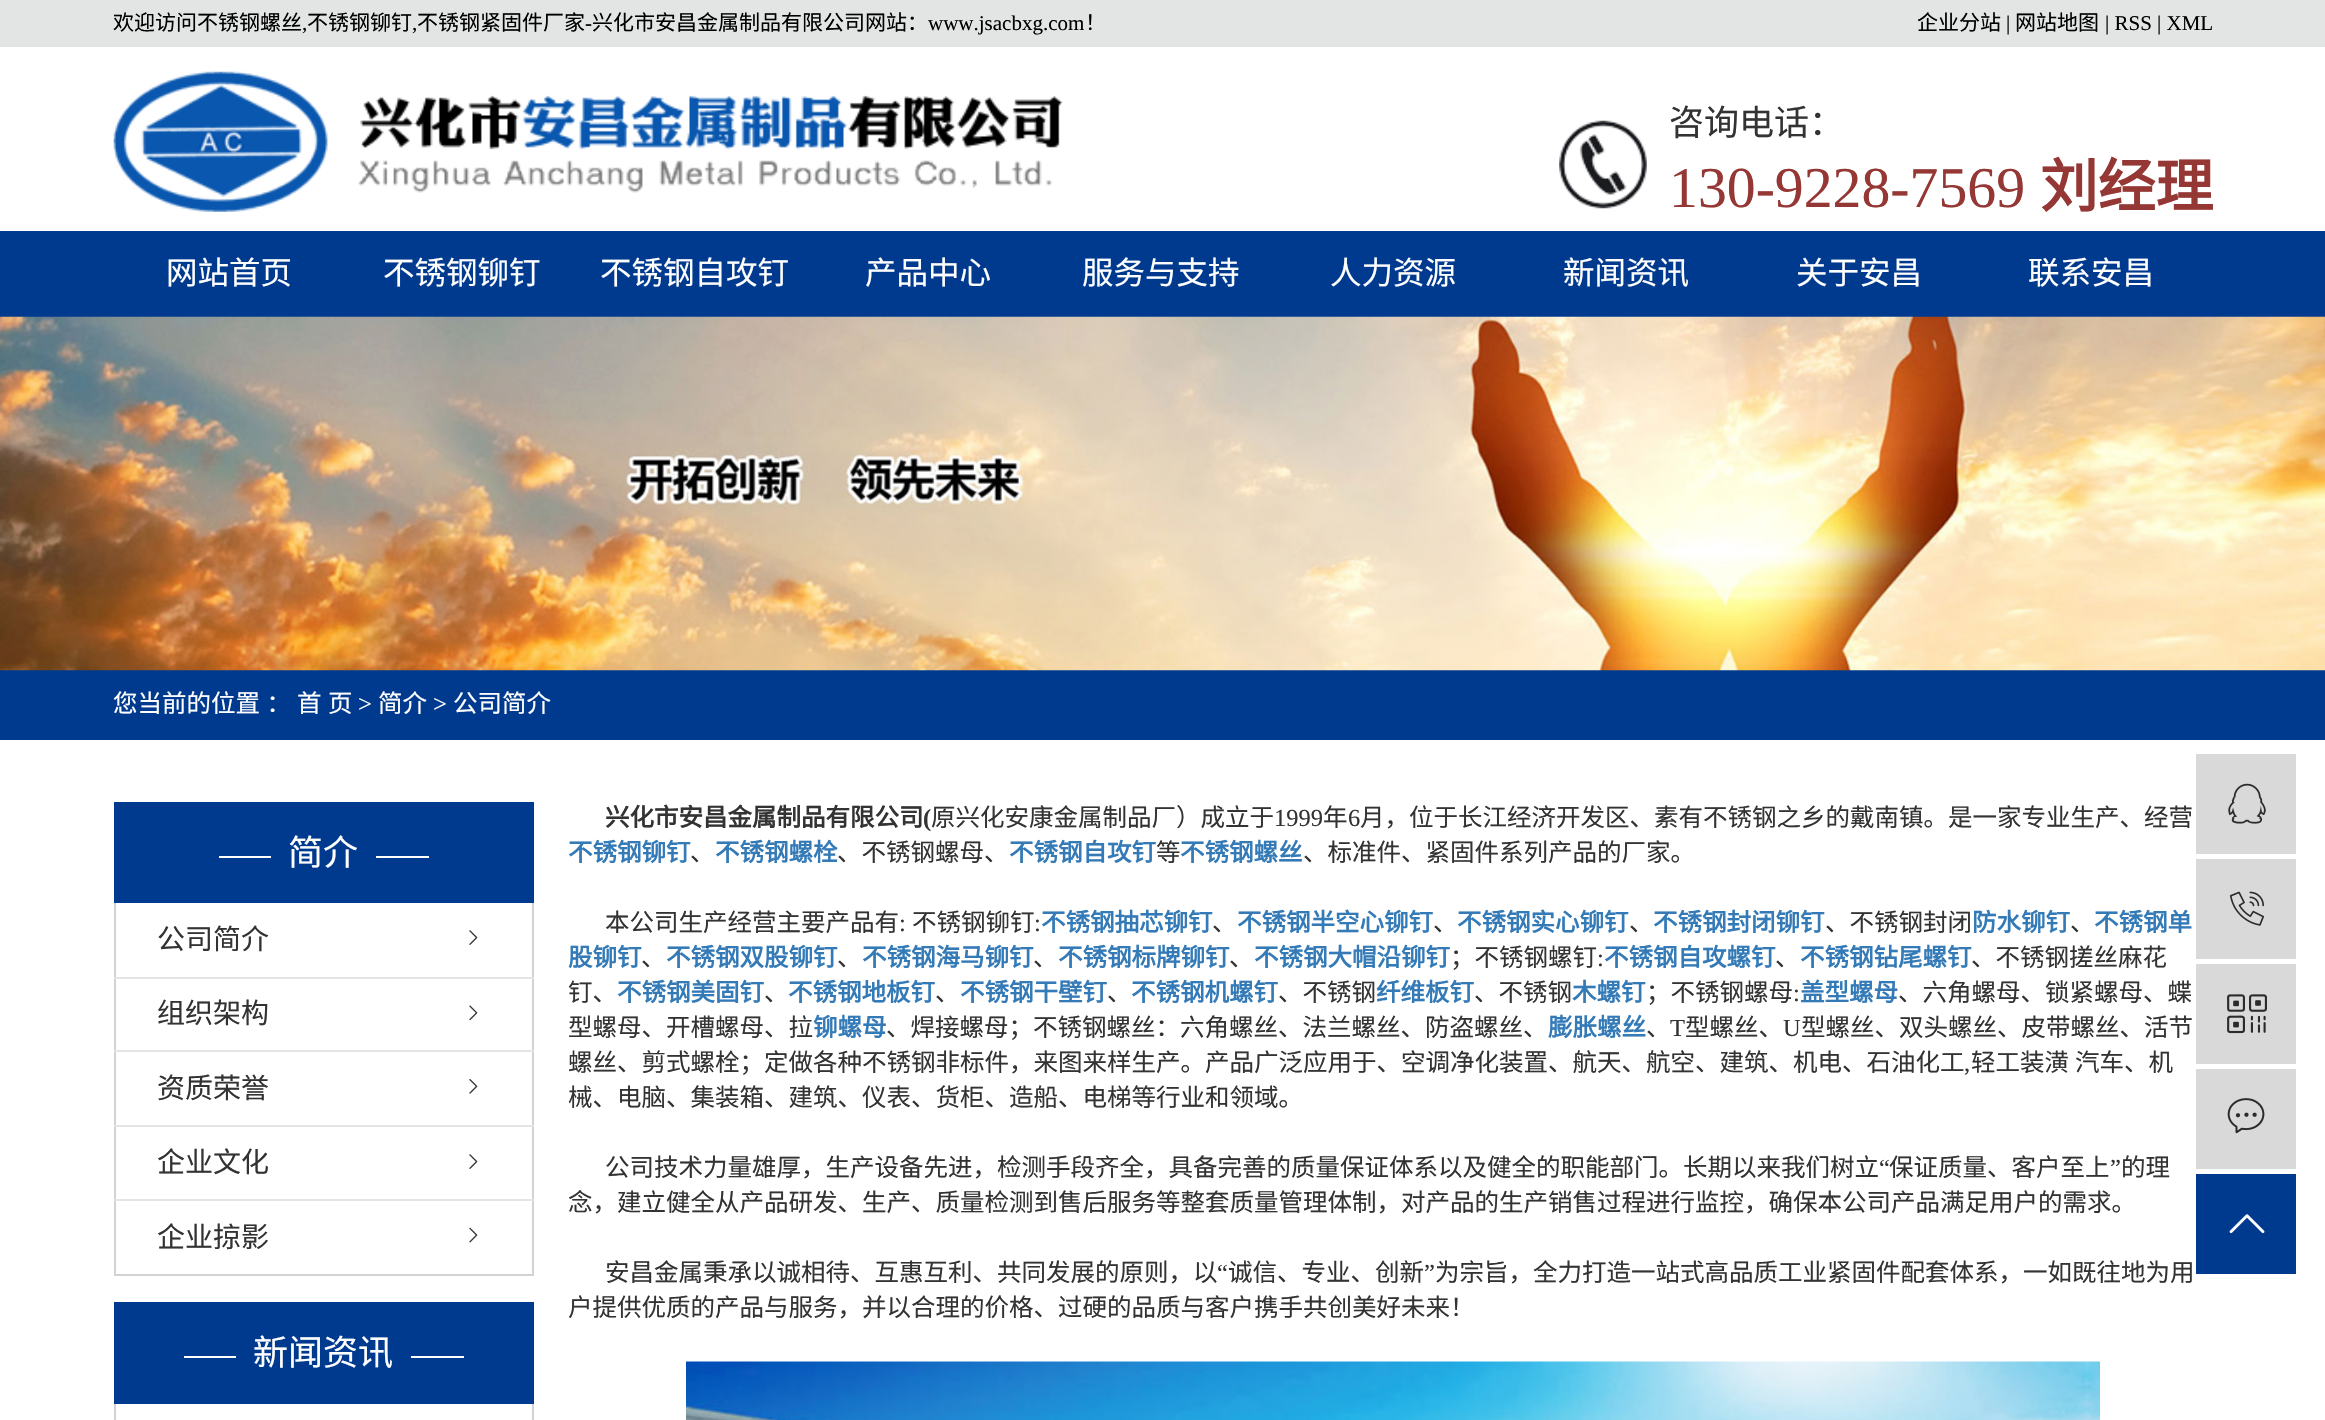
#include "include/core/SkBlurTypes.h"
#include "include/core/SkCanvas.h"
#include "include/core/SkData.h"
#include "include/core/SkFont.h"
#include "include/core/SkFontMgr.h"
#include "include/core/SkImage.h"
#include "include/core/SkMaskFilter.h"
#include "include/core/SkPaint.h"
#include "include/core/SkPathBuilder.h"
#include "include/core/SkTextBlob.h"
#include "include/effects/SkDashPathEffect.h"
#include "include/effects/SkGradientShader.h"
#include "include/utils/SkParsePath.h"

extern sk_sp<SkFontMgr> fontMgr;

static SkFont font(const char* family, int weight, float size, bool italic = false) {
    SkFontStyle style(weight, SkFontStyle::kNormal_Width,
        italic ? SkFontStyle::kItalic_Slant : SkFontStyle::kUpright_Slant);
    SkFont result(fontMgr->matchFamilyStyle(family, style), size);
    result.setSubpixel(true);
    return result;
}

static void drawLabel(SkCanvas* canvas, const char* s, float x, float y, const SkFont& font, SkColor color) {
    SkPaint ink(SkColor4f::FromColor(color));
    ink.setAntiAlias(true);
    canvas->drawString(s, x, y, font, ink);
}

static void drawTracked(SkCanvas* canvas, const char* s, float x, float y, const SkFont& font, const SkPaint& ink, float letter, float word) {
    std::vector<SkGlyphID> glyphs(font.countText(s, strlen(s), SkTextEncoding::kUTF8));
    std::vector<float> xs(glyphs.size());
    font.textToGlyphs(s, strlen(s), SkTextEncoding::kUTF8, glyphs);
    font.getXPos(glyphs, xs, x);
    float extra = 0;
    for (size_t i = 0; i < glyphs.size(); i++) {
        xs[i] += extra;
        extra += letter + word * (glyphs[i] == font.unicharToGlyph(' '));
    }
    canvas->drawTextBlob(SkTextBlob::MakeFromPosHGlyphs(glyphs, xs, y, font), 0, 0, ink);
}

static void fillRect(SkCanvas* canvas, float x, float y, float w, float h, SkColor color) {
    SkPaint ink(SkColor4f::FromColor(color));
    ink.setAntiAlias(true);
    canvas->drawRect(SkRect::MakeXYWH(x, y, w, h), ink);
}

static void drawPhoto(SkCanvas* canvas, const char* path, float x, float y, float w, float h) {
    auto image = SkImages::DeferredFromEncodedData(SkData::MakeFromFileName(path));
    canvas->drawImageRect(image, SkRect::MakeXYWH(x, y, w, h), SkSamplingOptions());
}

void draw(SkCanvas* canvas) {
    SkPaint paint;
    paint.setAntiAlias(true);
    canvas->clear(0xFFFFFFFF);
    fillRect(canvas, 0, 0, 2325, 47, 0xFFE3E4E4);
    SkFont font1 = font("Noto Sans CJK SC", 400, 21);
    drawLabel(canvas, "欢迎访问不锈钢螺丝", 113, 30, font1, 0xFF000000);
    drawLabel(canvas, "不锈钢铆钉", 307, 30, font1, 0xFF000000);
    drawLabel(canvas, "不锈钢紧固件厂家", 417, 30, font1, 0xFF000000);
    SkFont font2 = font("Liberation Serif", 400, 21);
    drawLabel(canvas, "-", 585, 30, font2, 0xFF000000);
    drawLabel(canvas, "兴化市安昌金属制品有限公司网站：", 592, 30, font1, 0xFF000000);
    drawLabel(canvas, "www.jsacbxg.com", 928, 30, font2, 0xFF000000);
    drawLabel(canvas, "！", 1085, 30, font1, 0xFF000000);
    drawLabel(canvas, ",", 302, 30, font2, 0xFF000000);
    drawLabel(canvas, ",", 412, 30, font2, 0xFF000000);
    drawLabel(canvas, "企业分站", 1917, 30, font1, 0xFF000000);
    drawLabel(canvas, "|", 2006, 30, font2, 0xFF000000);
    drawLabel(canvas, "网站地图", 2015, 30, font1, 0xFF000000);
    drawLabel(canvas, "| RSS | XML", 2105, 30, font2, 0xFF000000);
    drawPhoto(canvas, "assets/img1.png", 113, 71, 950, 141);
    drawPhoto(canvas, "assets/img2.png", 1559, 120, 88, 89);
    SkFont font3 = font("Noto Sans CJK SC", 400, 35);
    drawLabel(canvas, "咨询电话：", 1669, 135, font3, 0xFF333333);
    SkFont font4 = font("Liberation Serif", 400, 57.75f);
    drawLabel(canvas, "130-9228-7569", 1669, 207, font4, 0xFF953734);
    SkFont font5 = font("Noto Sans CJK SC", 700, 57.75f);
    drawLabel(canvas, "刘经理", 2040, 207, font5, 0xFF953734);
    fillRect(canvas, 0, 231, 2325, 86, 0xFF003A8F);
    SkFont font6 = font("Noto Sans CJK SC", 400, 31.5f);
    drawLabel(canvas, "网站首页", 166, 284, font6, 0xFFFFFFFF);
    drawLabel(canvas, "不锈钢铆钉", 383, 284, font6, 0xFFFFFFFF);
    drawLabel(canvas, "不锈钢自攻钉", 600, 284, font6, 0xFFFFFFFF);
    drawLabel(canvas, "产品中心", 865, 284, font6, 0xFFFFFFFF);
    drawLabel(canvas, "服务与支持", 1082, 284, font6, 0xFFFFFFFF);
    drawLabel(canvas, "人力资源", 1330, 284, font6, 0xFFFFFFFF);
    drawLabel(canvas, "新闻资讯", 1563, 284, font6, 0xFFFFFFFF);
    drawLabel(canvas, "关于安昌", 1796, 284, font6, 0xFFFFFFFF);
    drawLabel(canvas, "联系安昌", 2028, 284, font6, 0xFFFFFFFF);
    fillRect(canvas, 0, 670, 2325, 70, 0xFF003A8F);
    drawPhoto(canvas, "assets/img3.png", 0, 316, 2325, 355);
    SkFont font7 = font("Noto Sans CJK SC", 400, 24.5f);
    paint.setColor(0xFFFFFFFF);
    drawTracked(canvas, "您当前的位置 ：", 113, 712, font7, paint, 0, 1);
    drawTracked(canvas, "首 页", 297, 712, font7, paint, 0, 1);
    SkFont font8 = font("Liberation Serif", 400, 24.5f);
    drawLabel(canvas, ">", 358, 712, font8, 0xFFFFFFFF);
    drawLabel(canvas, "简介", 378, 712, font7, 0xFFFFFFFF);
    drawLabel(canvas, ">", 433, 712, font8, 0xFFFFFFFF);
    drawLabel(canvas, "公司简介", 453, 712, font7, 0xFFFFFFFF);
    fillRect(canvas, 114, 802, 420, 101, 0xFF003A8F);
    fillRect(canvas, 219, 856, 52, 2, 0xFFFFFFFF);
    drawLabel(canvas, "简介", 288, 865, font3, 0xFFFFFFFF);
    fillRect(canvas, 376, 856, 53, 2, 0xFFFFFFFF);
    fillRect(canvas, 532, 903, 2, 373, 0xFFD2D2D2);
    fillRect(canvas, 114, 1274, 420, 2, 0xFFD2D2D2);
    fillRect(canvas, 114, 903, 2, 373, 0xFFD2D2D2);
    SkFont font9 = font("Noto Sans CJK SC", 400, 28);
    drawLabel(canvas, "公司简介", 157, 949, font9, 0xFF333333);
    drawPhoto(canvas, "assets/img4.png", 469, 930, 9, 15);
    fillRect(canvas, 114, 977, 420, 2, 0xFFE4E4E4);
    drawLabel(canvas, "组织架构", 157, 1023, font9, 0xFF333333);
    drawPhoto(canvas, "assets/img5.png", 469, 1005, 9, 16);
    fillRect(canvas, 114, 1050, 420, 2, 0xFFE4E4E4);
    drawLabel(canvas, "资质荣誉", 157, 1098, font9, 0xFF333333);
    drawPhoto(canvas, "assets/img6.png", 469, 1079, 9, 15);
    fillRect(canvas, 114, 1125, 420, 2, 0xFFE4E4E4);
    drawLabel(canvas, "企业文化", 157, 1172, font9, 0xFF333333);
    drawPhoto(canvas, "assets/img4.png", 469, 1154, 9, 15);
    fillRect(canvas, 114, 1199, 420, 2, 0xFFE4E4E4);
    drawLabel(canvas, "企业掠影", 157, 1247, font9, 0xFF333333);
    drawPhoto(canvas, "assets/img7.png", 469, 1227, 9, 16);
    fillRect(canvas, 114, 1302, 420, 102, 0xFF003A8F);
    fillRect(canvas, 184, 1356, 52, 2, 0xFFFFFFFF);
    drawLabel(canvas, "新闻资讯", 253, 1365, font3, 0xFFFFFFFF);
    fillRect(canvas, 411, 1356, 53, 2, 0xFFFFFFFF);
    fillRect(canvas, 532, 1404, 2, 16, 0xFFD2D2D2);
    fillRect(canvas, 114, 1404, 2, 16, 0xFFD2D2D2);
    SkFont font10 = font("Noto Sans CJK SC", 700, 24.5f);
    drawLabel(canvas, "兴化市安昌金属制品有限公司", 605, 826, font10, 0xFF333333);
    SkFont font11 = font("Liberation Serif", 700, 24.5f);
    drawLabel(canvas, "(", 923, 826, font11, 0xFF333333);
    drawLabel(canvas, "原兴化安康金属制品厂）成立于", 931, 826, font7, 0xFF333333);
    drawLabel(canvas, "1999", 1274, 826, font8, 0xFF333333);
    drawLabel(canvas, "年", 1323, 826, font7, 0xFF333333);
    drawLabel(canvas, "6", 1348, 826, font8, 0xFF333333);
    drawLabel(canvas, "月，位于长江经济开发区、素有不锈钢之乡的戴南镇。是一家专业生产、经营", 1360, 826, font7, 0xFF333333);
    drawLabel(canvas, "不锈钢铆钉", 568, 861, font10, 0xFF337AB7);
    drawLabel(canvas, "、", 690, 861, font7, 0xFF333333);
    drawLabel(canvas, "不锈钢螺栓", 715, 861, font10, 0xFF337AB7);
    drawLabel(canvas, "、不锈钢螺母、", 837, 861, font7, 0xFF333333);
    drawLabel(canvas, "不锈钢自攻钉", 1009, 861, font10, 0xFF337AB7);
    drawLabel(canvas, "等", 1156, 861, font7, 0xFF333333);
    drawLabel(canvas, "不锈钢螺丝", 1180, 861, font10, 0xFF337AB7);
    drawLabel(canvas, "、标准件、紧固件系列产品的厂家。", 1303, 861, font7, 0xFF333333);
    drawLabel(canvas, "本公司生产经营主要产品有", 605, 931, font7, 0xFF333333);
    drawLabel(canvas, ":", 899, 931, font8, 0xFF333333);
    drawLabel(canvas, "不锈钢铆钉", 912, 931, font7, 0xFF333333);
    drawLabel(canvas, ":", 1034, 931, font8, 0xFF333333);
    drawLabel(canvas, "不锈钢抽芯铆钉", 1041, 931, font10, 0xFF337AB7);
    drawLabel(canvas, "、", 1212, 931, font7, 0xFF333333);
    drawLabel(canvas, "不锈钢半空心铆钉", 1237, 931, font10, 0xFF337AB7);
    drawLabel(canvas, "、", 1433, 931, font7, 0xFF333333);
    drawLabel(canvas, "不锈钢实心铆钉", 1457, 931, font10, 0xFF337AB7);
    drawLabel(canvas, "、", 1629, 931, font7, 0xFF333333);
    drawLabel(canvas, "不锈钢封闭铆钉", 1653, 931, font10, 0xFF337AB7);
    drawLabel(canvas, "、不锈钢封闭", 1825, 931, font7, 0xFF333333);
    drawLabel(canvas, "防水铆钉", 1972, 931, font10, 0xFF337AB7);
    drawLabel(canvas, "、", 2070, 931, font7, 0xFF333333);
    drawLabel(canvas, "不锈钢单", 2094, 931, font10, 0xFF337AB7);
    drawLabel(canvas, "股铆钉", 568, 966, font10, 0xFF337AB7);
    drawLabel(canvas, "、", 641, 966, font7, 0xFF333333);
    drawLabel(canvas, "不锈钢双股铆钉", 666, 966, font10, 0xFF337AB7);
    drawLabel(canvas, "、", 837, 966, font7, 0xFF333333);
    drawLabel(canvas, "不锈钢海马铆钉", 862, 966, font10, 0xFF337AB7);
    drawLabel(canvas, "、", 1033, 966, font7, 0xFF333333);
    drawLabel(canvas, "不锈钢标牌铆钉", 1058, 966, font10, 0xFF337AB7);
    drawLabel(canvas, "、", 1229, 966, font7, 0xFF333333);
    drawLabel(canvas, "不锈钢大帽沿铆钉", 1254, 966, font10, 0xFF337AB7);
    drawLabel(canvas, "；不锈钢螺钉", 1450, 966, font7, 0xFF333333);
    drawLabel(canvas, ":", 1597, 966, font8, 0xFF333333);
    drawLabel(canvas, "不锈钢自攻螺钉", 1604, 966, font10, 0xFF337AB7);
    drawLabel(canvas, "、", 1775, 966, font7, 0xFF333333);
    drawLabel(canvas, "不锈钢钻尾螺钉", 1800, 966, font10, 0xFF337AB7);
    drawLabel(canvas, "、不锈钢搓丝麻花", 1971, 966, font7, 0xFF333333);
    drawLabel(canvas, "钉、", 568, 1001, font7, 0xFF333333);
    drawLabel(canvas, "不锈钢美固钉", 617, 1001, font10, 0xFF337AB7);
    drawLabel(canvas, "、", 764, 1001, font7, 0xFF333333);
    drawLabel(canvas, "不锈钢地板钉", 788, 1001, font10, 0xFF337AB7);
    drawLabel(canvas, "、", 935, 1001, font7, 0xFF333333);
    drawLabel(canvas, "不锈钢干壁钉", 960, 1001, font10, 0xFF337AB7);
    drawLabel(canvas, "、", 1107, 1001, font7, 0xFF333333);
    drawLabel(canvas, "不锈钢机螺钉", 1131, 1001, font10, 0xFF337AB7);
    drawLabel(canvas, "、不锈钢", 1278, 1001, font7, 0xFF333333);
    drawLabel(canvas, "纤维板钉", 1376, 1001, font10, 0xFF337AB7);
    drawLabel(canvas, "、不锈钢", 1474, 1001, font7, 0xFF333333);
    drawLabel(canvas, "木螺钉", 1572, 1001, font10, 0xFF337AB7);
    drawLabel(canvas, "；不锈钢螺母", 1646, 1001, font7, 0xFF333333);
    drawLabel(canvas, ":", 1793, 1001, font8, 0xFF333333);
    drawLabel(canvas, "盖型螺母", 1800, 1001, font10, 0xFF337AB7);
    drawLabel(canvas, "、六角螺母、锁紧螺母、蝶", 1898, 1001, font7, 0xFF333333);
    drawLabel(canvas, "型螺母、开槽螺母、拉", 568, 1036, font7, 0xFF333333);
    drawLabel(canvas, "铆螺母", 813, 1036, font10, 0xFF337AB7);
    drawLabel(canvas, "、焊接螺母；不锈钢螺丝：六角螺丝、法兰螺丝、防盗螺丝、", 886, 1036, font7, 0xFF333333);
    drawLabel(canvas, "膨胀螺丝", 1548, 1036, font10, 0xFF337AB7);
    drawLabel(canvas, "、", 1646, 1036, font7, 0xFF333333);
    drawLabel(canvas, "T", 1670, 1036, font8, 0xFF333333);
    drawLabel(canvas, "型螺丝、", 1685, 1036, font7, 0xFF333333);
    drawLabel(canvas, "U", 1783, 1036, font8, 0xFF333333);
    drawLabel(canvas, "型螺丝、双头螺丝、皮带螺丝、活节", 1801, 1036, font7, 0xFF333333);
    drawLabel(canvas, "螺丝、剪式螺栓；定做各种不锈钢非标件，来图来样生产。产品广泛应用于、空调净化装置、航天、航空、建筑、机电、石油化工", 568, 1071, font7, 0xFF333333);
    drawLabel(canvas, ",", 1964, 1071, font8, 0xFF333333);
    drawLabel(canvas, "轻工装潢", 1971, 1071, font7, 0xFF333333);
    drawLabel(canvas, "汽车、机", 2075, 1071, font7, 0xFF333333);
    drawLabel(canvas, "械、电脑、集装箱、建筑、仪表、货柜、造船、电梯等行业和领域。", 568, 1106, font7, 0xFF333333);
    drawLabel(canvas, "公司技术力量雄厚，生产设备先进，检测手段齐全，具备完善的质量保证体系以及健全的职能部门。长期以来我们树立", 605, 1176, font7, 0xFF333333);
    drawLabel(canvas, "“", 1879, 1176, font8, 0xFF333333);
    drawLabel(canvas, "保证质量、客户至上", 1889, 1176, font7, 0xFF333333);
    drawLabel(canvas, "”", 2110, 1176, font8, 0xFF333333);
    drawLabel(canvas, "的理", 2121, 1176, font7, 0xFF333333);
    drawLabel(canvas, "念，建立健全从产品研发、生产、质量检测到售后服务等整套质量管理体制，对产品的生产销售过程进行监控，确保本公司产品满足用户的需求。", 568, 1211, font7, 0xFF333333);
    drawLabel(canvas, "安昌金属秉承以诚相待、互惠互利、共同发展的原则，以", 605, 1281, font7, 0xFF333333);
    drawLabel(canvas, "“", 1217, 1281, font8, 0xFF333333);
    drawLabel(canvas, "诚信、专业、创新", 1228, 1281, font7, 0xFF333333);
    drawLabel(canvas, "”", 1424, 1281, font8, 0xFF333333);
    drawLabel(canvas, "为宗旨，全力打造一站式高品质工业紧固件配套体系，一如既往地为用", 1435, 1281, font7, 0xFF333333);
    drawLabel(canvas, "户提供优质的产品与服务，并以合理的价格、过硬的品质与客户携手共创美好未来！", 568, 1316, font7, 0xFF333333);
    drawPhoto(canvas, "assets/img8.png", 686, 1361, 1414, 59);
    fillRect(canvas, 2196, 754, 100, 100, 0xFFD9D9D9);
    drawPhoto(canvas, "assets/img9.png", 2228, 783, 38, 41);
    fillRect(canvas, 2196, 859, 100, 100, 0xFFD9D9D9);
    drawPhoto(canvas, "assets/img10.png", 2230, 891, 35, 35);
    fillRect(canvas, 2196, 964, 100, 100, 0xFFD9D9D9);
    drawPhoto(canvas, "assets/img11.png", 2227, 994, 40, 40);
    fillRect(canvas, 2196, 1069, 100, 100, 0xFFD9D9D9);
    drawPhoto(canvas, "assets/img12.png", 2227, 1098, 38, 36);
    fillRect(canvas, 2196, 1174, 100, 100, 0xFF003A8F);
    drawPhoto(canvas, "assets/img13.png", 2229, 1214, 36, 20);
}
